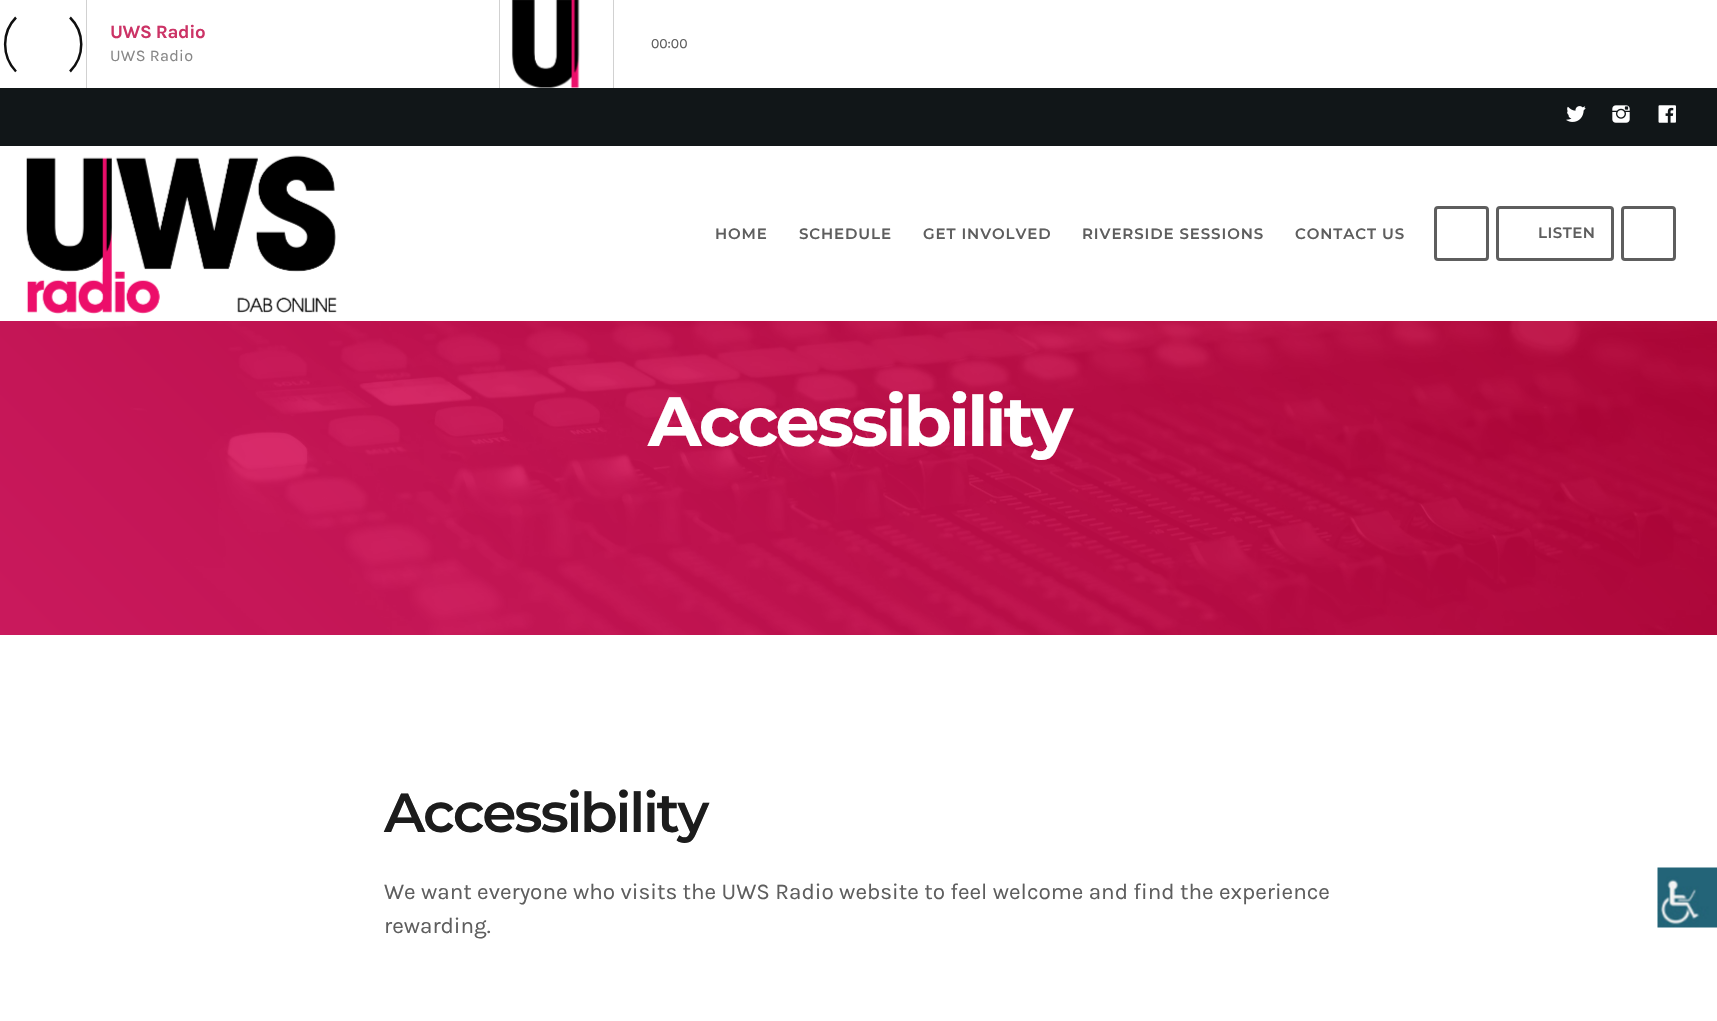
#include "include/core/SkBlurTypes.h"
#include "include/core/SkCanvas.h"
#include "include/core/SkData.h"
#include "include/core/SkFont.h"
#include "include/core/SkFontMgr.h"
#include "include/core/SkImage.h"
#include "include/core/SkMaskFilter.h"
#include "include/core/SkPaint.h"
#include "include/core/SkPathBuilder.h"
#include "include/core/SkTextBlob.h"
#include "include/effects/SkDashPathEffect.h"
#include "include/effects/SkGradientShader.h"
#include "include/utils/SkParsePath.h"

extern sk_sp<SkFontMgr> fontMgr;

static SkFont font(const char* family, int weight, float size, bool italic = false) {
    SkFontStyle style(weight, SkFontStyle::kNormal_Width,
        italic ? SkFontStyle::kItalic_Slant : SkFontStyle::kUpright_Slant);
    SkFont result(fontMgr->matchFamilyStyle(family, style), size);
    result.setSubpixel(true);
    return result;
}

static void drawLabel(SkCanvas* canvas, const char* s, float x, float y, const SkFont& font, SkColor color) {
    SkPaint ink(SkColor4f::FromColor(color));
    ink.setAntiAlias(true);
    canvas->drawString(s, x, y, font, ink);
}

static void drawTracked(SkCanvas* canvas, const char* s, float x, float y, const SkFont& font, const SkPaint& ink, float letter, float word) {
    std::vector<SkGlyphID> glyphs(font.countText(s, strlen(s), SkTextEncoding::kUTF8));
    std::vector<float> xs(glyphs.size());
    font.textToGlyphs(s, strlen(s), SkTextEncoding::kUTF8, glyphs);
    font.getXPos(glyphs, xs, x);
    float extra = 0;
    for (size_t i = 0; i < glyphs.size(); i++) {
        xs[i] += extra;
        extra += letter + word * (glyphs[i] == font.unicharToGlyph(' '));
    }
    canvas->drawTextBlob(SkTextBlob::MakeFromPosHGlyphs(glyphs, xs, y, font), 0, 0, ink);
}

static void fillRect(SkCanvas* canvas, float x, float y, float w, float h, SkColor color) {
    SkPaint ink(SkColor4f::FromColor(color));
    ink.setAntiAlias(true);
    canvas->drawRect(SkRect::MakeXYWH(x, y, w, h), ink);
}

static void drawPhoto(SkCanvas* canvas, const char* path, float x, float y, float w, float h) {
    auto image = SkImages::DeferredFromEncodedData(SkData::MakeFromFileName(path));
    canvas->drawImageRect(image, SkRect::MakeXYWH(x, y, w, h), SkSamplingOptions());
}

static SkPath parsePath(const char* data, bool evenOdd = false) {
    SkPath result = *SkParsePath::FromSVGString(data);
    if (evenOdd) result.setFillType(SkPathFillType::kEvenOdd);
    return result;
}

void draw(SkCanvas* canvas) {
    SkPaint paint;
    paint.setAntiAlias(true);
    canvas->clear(0xFFFFFFFF);
    fillRect(canvas, 499, 0, 1, 88, 0xFFD1D1D1);
    fillRect(canvas, 86, 0, 1, 88, 0xFFD1D1D1);
    paint.setStroke(true);
    paint.setStrokeWidth(2.5f);
    paint.setColor(0xFF0F0F0F);
    canvas->drawPath(parsePath("M70 17.5C85 32 85 56.5 70 71.5"), paint);
    canvas->drawPath(parsePath("M16 71.5C1.5 56.5 1.5 32 16 17.5"), paint);
    SkFont font1 = font("Karla", 700, 18.75f);
    paint.setStroke(false);
    paint.setColor(0xFFCC3366);
    drawTracked(canvas, "UWS Radio", 110, 38, font1, paint, -0.4f, 0);
    SkFont font2 = font("Karla", 400, 16.25f);
    paint.setColor(0xFF878787);
    drawTracked(canvas, "UWS Radio", 110, 61, font2, paint, 0.25f, 0);
    drawPhoto(canvas, "assets/img1.png", 511, 0, 69, 88);
    fillRect(canvas, 613, 0, 1, 88, 0xFFD1D1D1);
    SkFont font3 = font("Karla", 400, 14);
    drawLabel(canvas, "00:00", 651, 48, font3, 0xFF5E5E5E);
    fillRect(canvas, 0, 88, 1717, 58, 0xFF111618);
    drawPhoto(canvas, "assets/img2.png", 1566, 106, 20, 16);
    drawPhoto(canvas, "assets/img3.png", 1612, 105, 18, 18);
    drawPhoto(canvas, "assets/img4.png", 1658, 105, 18, 18);
    drawPhoto(canvas, "assets/img5.png", 26, 155, 311, 159);
    SkFont font4 = font("Montserrat", 600, 15);
    paint.setColor(0xFF5E5E5E);
    drawTracked(canvas, "HOME", 715, 239, font4, paint, 0.9f, 0);
    drawTracked(canvas, "SCHEDULE", 799, 239, font4, paint, 0.9f, 0);
    drawTracked(canvas, "GET INVOLVED", 923, 239, font4, paint, 0.9f, 0);
    drawTracked(canvas, "RIVERSIDE SESSIONS", 1082, 239, font4, paint, 0.9f, 0);
    drawTracked(canvas, "CONTACT US", 1295, 239, font4, paint, 0.9f, 0);
    paint.setStroke(true);
    paint.setStrokeWidth(3);
    canvas->drawRoundRect(SkRect::MakeXYWH(1435.5f, 207.5f, 52, 52), 2.5f, 2.5f, paint);
    canvas->drawRoundRect(SkRect::MakeXYWH(1497.5f, 207.5f, 115, 52), 2.5f, 2.5f, paint);
    paint.setStroke(false);
    drawTracked(canvas, "LISTEN", 1538, 238, font4, paint, 0.5f, 0);
    paint.setStroke(true);
    canvas->drawRoundRect(SkRect::MakeXYWH(1622.5f, 207.5f, 52, 52), 2.5f, 2.5f, paint);
    drawPhoto(canvas, "assets/img6.png", 0, 321, 1717, 314);
    SkFont font5 = font("Montserrat", 700, 69.75f);
    paint.setStroke(false);
    paint.setColor(0xFFFFFFFF);
    drawTracked(canvas, "Accessibility", 648, 446, font5, paint, -2.75f, 0);
    SkFont font6 = font("Montserrat", 600, 55);
    paint.setColor(0xFF1C1C1C);
    drawTracked(canvas, "Accessibility", 384, 832, font6, paint, -2.25f, 0);
    SkFont font7 = font("Karla", 400, 22.5f);
    drawLabel(canvas, "We want everyone who visits the UWS Radio website to feel welcome and find the experience", 384, 899, font7, 0xFF5E5E5E);
    drawLabel(canvas, "rewarding.", 384, 933, font7, 0xFF5E5E5E);
    drawPhoto(canvas, "assets/img7.png", 1657, 867, 60, 61);
}
